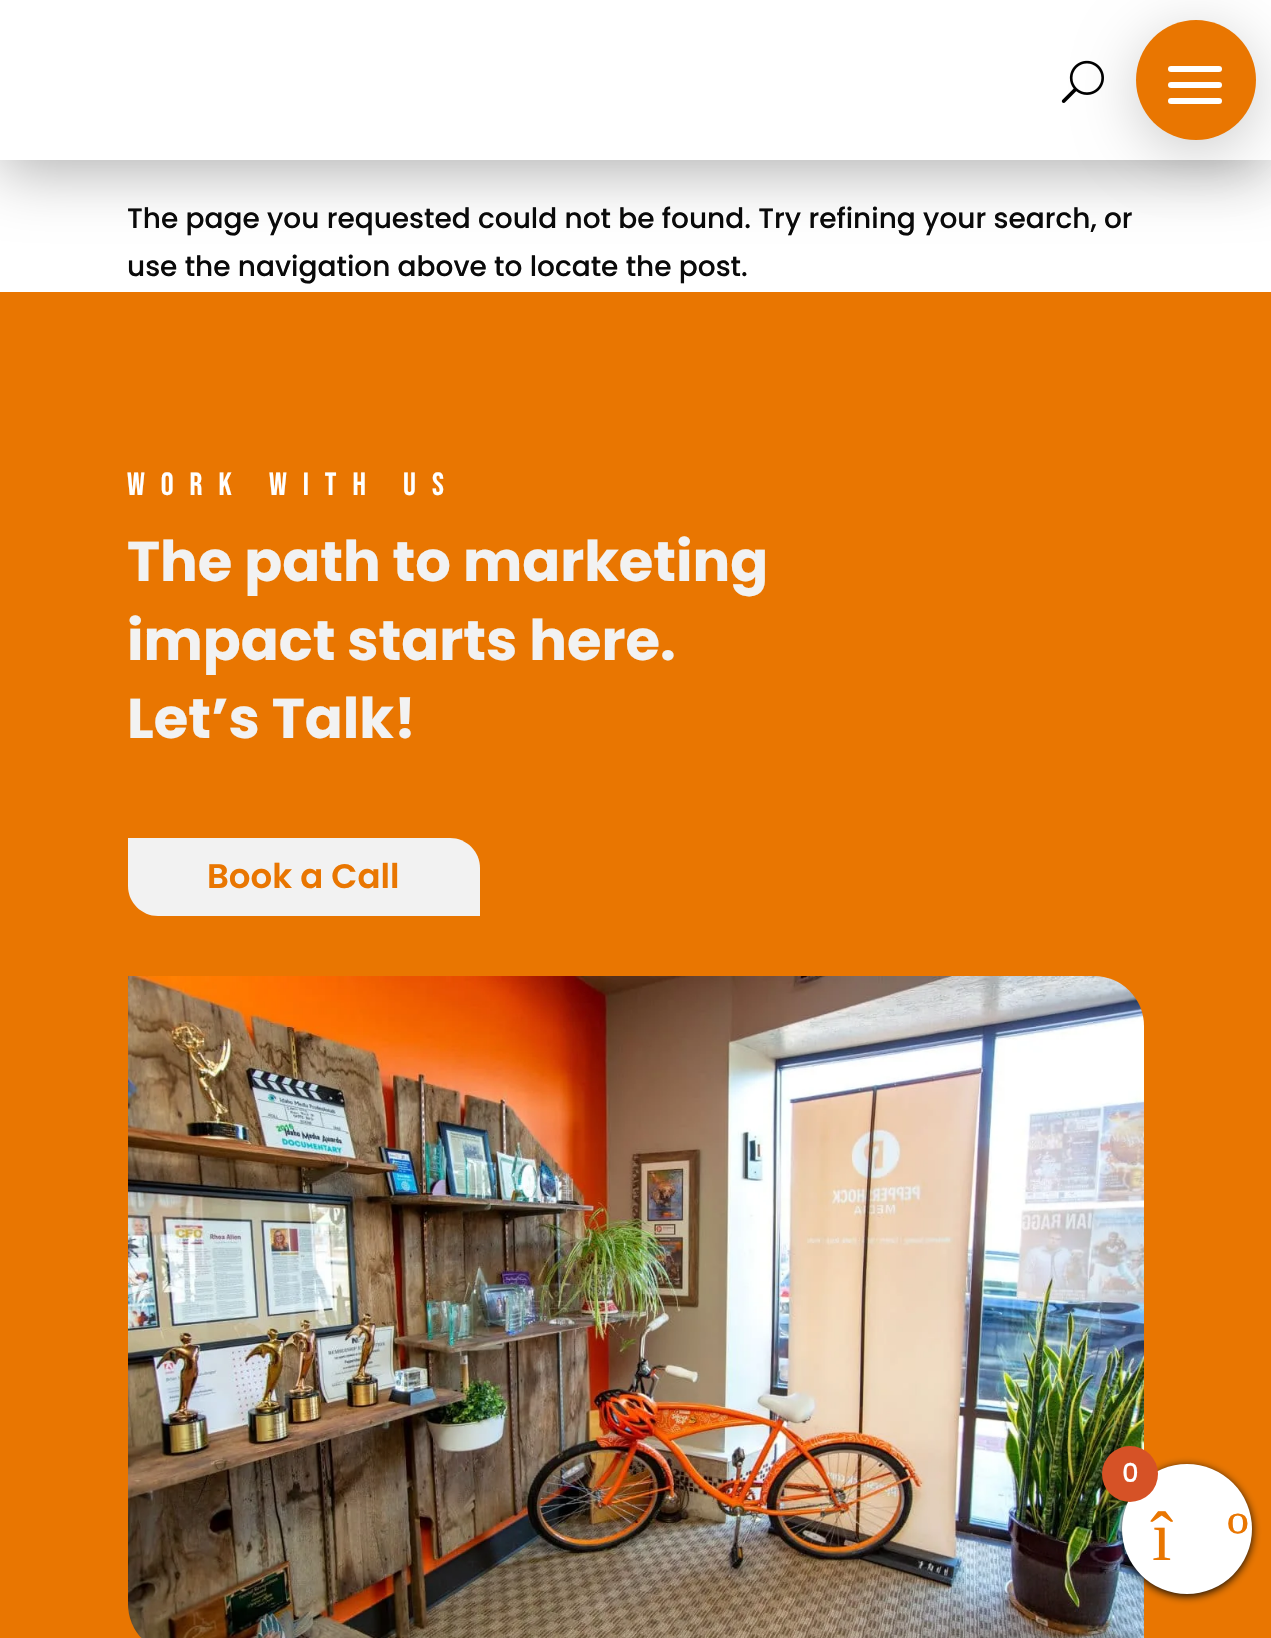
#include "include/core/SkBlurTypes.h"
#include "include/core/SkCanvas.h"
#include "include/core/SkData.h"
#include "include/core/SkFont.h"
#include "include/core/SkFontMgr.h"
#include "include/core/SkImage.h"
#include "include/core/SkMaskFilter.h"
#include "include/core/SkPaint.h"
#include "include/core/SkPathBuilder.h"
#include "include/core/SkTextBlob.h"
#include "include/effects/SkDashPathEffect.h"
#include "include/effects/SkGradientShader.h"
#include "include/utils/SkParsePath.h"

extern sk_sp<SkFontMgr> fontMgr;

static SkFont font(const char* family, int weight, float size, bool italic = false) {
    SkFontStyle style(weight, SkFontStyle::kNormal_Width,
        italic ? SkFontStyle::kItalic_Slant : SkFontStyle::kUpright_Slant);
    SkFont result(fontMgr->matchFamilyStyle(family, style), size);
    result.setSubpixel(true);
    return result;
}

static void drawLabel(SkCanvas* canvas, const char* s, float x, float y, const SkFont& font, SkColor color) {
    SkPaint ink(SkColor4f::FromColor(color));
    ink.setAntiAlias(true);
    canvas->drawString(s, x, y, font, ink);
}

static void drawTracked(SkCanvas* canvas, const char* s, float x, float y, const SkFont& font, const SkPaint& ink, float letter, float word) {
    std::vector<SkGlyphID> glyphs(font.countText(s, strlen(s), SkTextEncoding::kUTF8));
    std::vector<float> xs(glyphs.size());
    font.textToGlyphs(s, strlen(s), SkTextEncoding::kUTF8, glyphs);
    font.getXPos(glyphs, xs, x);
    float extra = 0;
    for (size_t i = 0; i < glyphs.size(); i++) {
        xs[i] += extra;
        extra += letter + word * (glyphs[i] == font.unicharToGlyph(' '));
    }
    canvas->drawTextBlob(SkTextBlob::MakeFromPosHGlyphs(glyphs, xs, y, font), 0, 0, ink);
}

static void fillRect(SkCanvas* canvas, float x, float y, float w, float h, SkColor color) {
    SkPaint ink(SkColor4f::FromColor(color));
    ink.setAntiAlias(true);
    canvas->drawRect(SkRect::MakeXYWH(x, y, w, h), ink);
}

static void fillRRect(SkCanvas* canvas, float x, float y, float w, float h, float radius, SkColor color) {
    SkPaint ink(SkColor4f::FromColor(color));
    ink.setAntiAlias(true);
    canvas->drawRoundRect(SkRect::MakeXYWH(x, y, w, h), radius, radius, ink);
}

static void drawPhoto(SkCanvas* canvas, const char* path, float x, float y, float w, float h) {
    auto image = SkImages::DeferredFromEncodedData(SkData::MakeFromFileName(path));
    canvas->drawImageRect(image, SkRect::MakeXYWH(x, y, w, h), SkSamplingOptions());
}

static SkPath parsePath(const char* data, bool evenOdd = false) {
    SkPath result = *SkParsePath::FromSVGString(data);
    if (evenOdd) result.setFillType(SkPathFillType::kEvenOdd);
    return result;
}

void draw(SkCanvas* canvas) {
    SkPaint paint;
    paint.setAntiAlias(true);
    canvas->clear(0xFFFFFFFF);
    paint.setColor(0x4D000000);
    paint.setMaskFilter(SkMaskFilter::MakeBlur(kNormal_SkBlurStyle, 30));
    canvas->drawRect(SkRect::MakeXYWH(0, 12, 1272, 160), paint);
    paint.setMaskFilter(nullptr);
    fillRect(canvas, 0, 0, 1271, 160, 0xFFFFFFFF);
    drawPhoto(canvas, "assets/img1.png", 1061, 60, 43, 43);
    paint.setColor(0x33000000);
    paint.setMaskFilter(SkMaskFilter::MakeBlur(kNormal_SkBlurStyle, 30));
    canvas->drawRoundRect(SkRect::MakeXYWH(1136, 32, 120, 120), 60, 60, paint);
    paint.setMaskFilter(nullptr);
    paint.setColor(0xFFE97601);
    canvas->drawCircle(1196, 80, 60, paint);
    fillRRect(canvas, 1168, 82, 54, 6, 3, 0xFFFFFFFF);
    fillRRect(canvas, 1168, 66, 54, 6, 3, 0xFFFFFFFF);
    fillRRect(canvas, 1168, 98, 54, 6, 3, 0xFFFFFFFF);
    SkFont font1 = font("Poppins", 500, 28);
    drawLabel(canvas, "The page you requested could not be found. Try refining your search, or", 127, 228, font1, 0xFF0A0A0A);
    drawLabel(canvas, "use the navigation above to locate the post.", 127, 276, font1, 0xFF0A0A0A);
    fillRect(canvas, 0, 292, 1271, 1346, 0xFFE97601);
    SkFont font2 = font("Bebas Neue", 400, 32);
    paint.setColor(0xFFFFFFFF);
    drawTracked(canvas, "WORK WITH US", 127, 495, font2, paint, 16, 0);
    SkFont font3 = font("Poppins", 700, 56);
    drawLabel(canvas, "The path to marketing", 127, 581, font3, 0xFFF2F2F2);
    drawLabel(canvas, "impact starts here.", 127, 660, font3, 0xFFF2F2F2);
    drawLabel(canvas, "Let’s Talk!", 127, 738, font3, 0xFFF2F2F2);
    paint.setColor(0xFFF2F2F2);
    canvas->drawPath(parsePath("M128 838H450C466.5 838 480 851.5 480 868V916H158C141.5 916 128 902.5 128 886Z"), paint);
    SkFont font4 = font("Poppins", 600, 34);
    drawLabel(canvas, "Book a Call", 207, 888, font4, 0xFFE97601);
    drawPhoto(canvas, "assets/img2.png", 128, 976, 1016, 662);
    paint.setColor(0xFF0A0A0A);
    paint.setMaskFilter(SkMaskFilter::MakeBlur(kNormal_SkBlurStyle, 4));
    canvas->drawRoundRect(SkRect::MakeXYWH(1122, 1466, 130, 130), 65, 65, paint);
    paint.setMaskFilter(nullptr);
    paint.setColor(0xFFFFFFFF);
    canvas->drawCircle(1187, 1529, 65, paint);
    paint.setColor(0xFFD65226);
    canvas->drawCircle(1130, 1474, 28, paint);
    SkFont font5 = font("Poppins", 500, 26);
    drawLabel(canvas, "0", 1122, 1482, font5, 0xFFFFFFFF);
    SkFont font6 = font("Liberation Serif", 400, 70);
    drawLabel(canvas, "î", 1152, 1560, font6, 0xFFE97601);
    drawLabel(canvas, "º", 1227, 1560, font6, 0xFFE97601);
}
